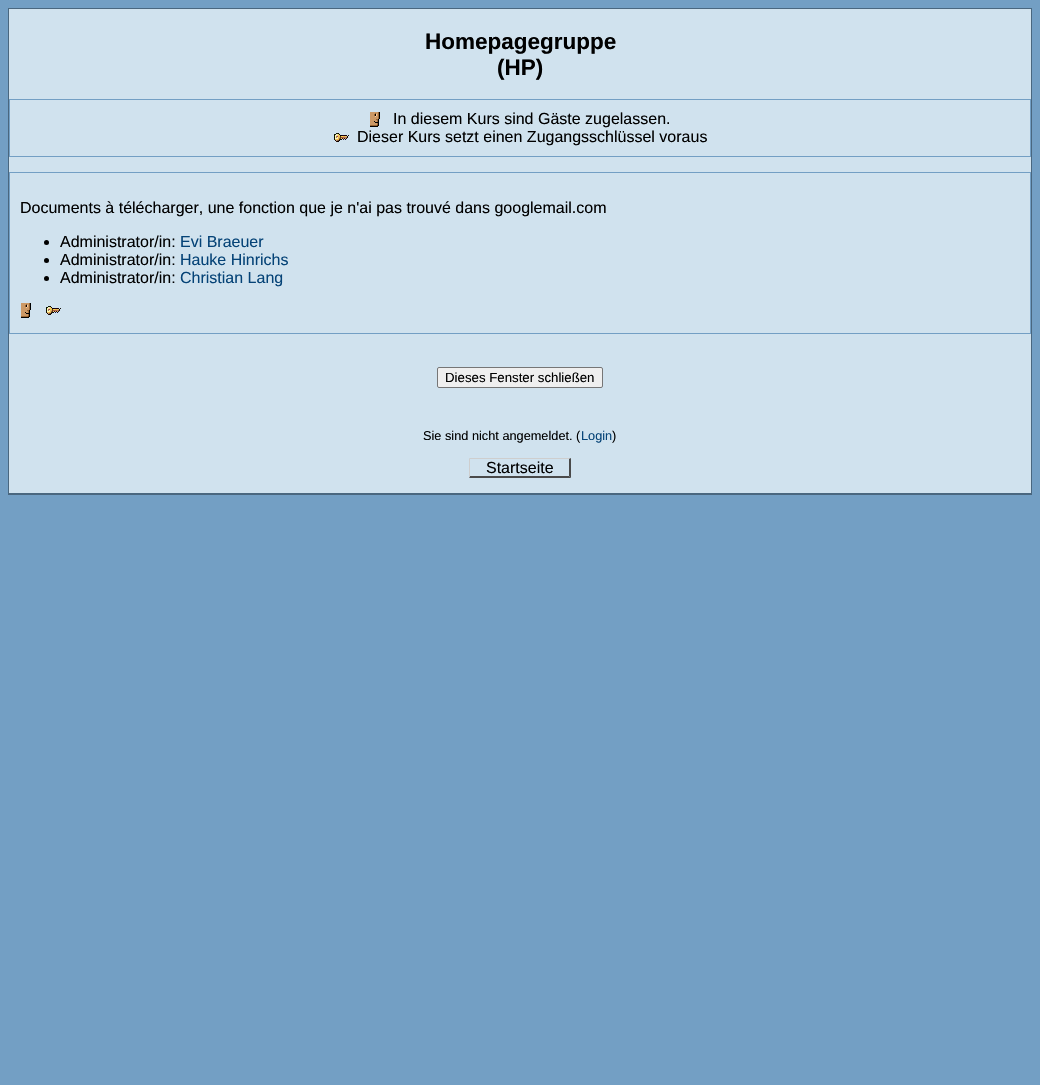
#include "include/core/SkBlurTypes.h"
#include "include/core/SkCanvas.h"
#include "include/core/SkData.h"
#include "include/core/SkFont.h"
#include "include/core/SkFontMgr.h"
#include "include/core/SkImage.h"
#include "include/core/SkMaskFilter.h"
#include "include/core/SkPaint.h"
#include "include/core/SkPathBuilder.h"
#include "include/core/SkTextBlob.h"
#include "include/effects/SkDashPathEffect.h"
#include "include/effects/SkGradientShader.h"
#include "include/utils/SkParsePath.h"

extern sk_sp<SkFontMgr> fontMgr;

static SkFont font(const char* family, int weight, float size, bool italic = false) {
    SkFontStyle style(weight, SkFontStyle::kNormal_Width,
        italic ? SkFontStyle::kItalic_Slant : SkFontStyle::kUpright_Slant);
    SkFont result(fontMgr->matchFamilyStyle(family, style), size);
    result.setSubpixel(true);
    return result;
}

static void drawLabel(SkCanvas* canvas, const char* s, float x, float y, const SkFont& font, SkColor color) {
    SkPaint ink(SkColor4f::FromColor(color));
    ink.setAntiAlias(true);
    canvas->drawString(s, x, y, font, ink);
}

static void fillRect(SkCanvas* canvas, float x, float y, float w, float h, SkColor color) {
    SkPaint ink(SkColor4f::FromColor(color));
    ink.setAntiAlias(true);
    canvas->drawRect(SkRect::MakeXYWH(x, y, w, h), ink);
}

static void drawPhoto(SkCanvas* canvas, const char* path, float x, float y, float w, float h) {
    auto image = SkImages::DeferredFromEncodedData(SkData::MakeFromFileName(path));
    canvas->drawImageRect(image, SkRect::MakeXYWH(x, y, w, h), SkSamplingOptions());
}

static SkPath parsePath(const char* data, bool evenOdd = false) {
    SkPath result = *SkParsePath::FromSVGString(data);
    if (evenOdd) result.setFillType(SkPathFillType::kEvenOdd);
    return result;
}

void draw(SkCanvas* canvas) {
    SkPaint paint;
    paint.setAntiAlias(true);
    canvas->clear(0xFF739FC4);
    fillRect(canvas, 9, 9, 1022, 484, 0xFFD0E2EE);
    fillRect(canvas, 8, 8, 1024, 1, 0xFF4A677F);
    fillRect(canvas, 1031, 8, 1, 487, 0xFF4A677F);
    fillRect(canvas, 8, 493, 1024, 2, 0xFF4A677F);
    fillRect(canvas, 8, 8, 1, 487, 0xFF4A677F);
    SkFont font1 = font("Liberation Sans", 700, 22.5f);
    drawLabel(canvas, "Homepagegruppe", 425, 49, font1, 0xFF000000);
    drawLabel(canvas, "(HP)", 497, 75, font1, 0xFF000000);
    paint.setStroke(true);
    paint.setStrokeWidth(1);
    paint.setColor(0xFF739FC4);
    canvas->drawRect(SkRect::MakeXYWH(9.5f, 99.5f, 1021, 57), paint);
    drawPhoto(canvas, "assets/img1.png", 370, 112, 10, 15);
    SkFont font2 = font("Liberation Sans", 400, 16);
    drawLabel(canvas, "In diesem Kurs sind Gäste zugelassen.", 393, 124, font2, 0xFF000000);
    drawPhoto(canvas, "assets/img2.png", 334, 133, 15, 9);
    drawLabel(canvas, "Dieser Kurs setzt einen Zugangsschlüssel voraus", 357, 142, font2, 0xFF000000);
    canvas->drawRect(SkRect::MakeXYWH(9.5f, 172.5f, 1021, 161), paint);
    drawLabel(canvas, "Documents à télécharger, une fonction que je n'ai pas trouvé dans googlemail.com", 20, 213, font2, 0xFF000000);
    paint.setStroke(false);
    paint.setColor(0xFF000000);
    canvas->drawCircle(46.5f, 242.5f, 2.5f, paint);
    drawLabel(canvas, "Administrator/in:", 60, 247, font2, 0xFF000000);
    drawLabel(canvas, "Evi Braeuer", 180, 247, font2, 0xFF054377);
    canvas->drawCircle(46.5f, 260.5f, 2.5f, paint);
    drawLabel(canvas, "Administrator/in:", 60, 265, font2, 0xFF000000);
    drawLabel(canvas, "Hauke Hinrichs", 180, 265, font2, 0xFF054377);
    canvas->drawCircle(46.5f, 278.5f, 2.5f, paint);
    drawLabel(canvas, "Administrator/in:", 60, 283, font2, 0xFF000000);
    drawLabel(canvas, "Christian Lang", 180, 283, font2, 0xFF054377);
    drawPhoto(canvas, "assets/img1.png", 21, 303, 10, 15);
    drawPhoto(canvas, "assets/img2.png", 46, 306, 15, 9);
    paint.setColor(0xFFEFEFEF);
    canvas->drawRoundRect(SkRect::MakeXYWH(437.5f, 367.5f, 165, 20), 1.5f, 1.5f, paint);
    paint.setStroke(true);
    paint.setColor(0xFF767676);
    canvas->drawRoundRect(SkRect::MakeXYWH(437.5f, 367.5f, 165, 20), 1.5f, 1.5f, paint);
    SkFont font3 = font("Liberation Sans", 400, 13.25f);
    drawLabel(canvas, "Dieses Fenster schließen", 445, 382, font3, 0xFF000000);
    SkFont font4 = font("Liberation Sans", 400, 12.75f);
    drawLabel(canvas, "Sie sind nicht angemeldet. (", 423, 440, font4, 0xFF000000);
    drawLabel(canvas, "Login", 581, 440, font4, 0xFF054377);
    drawLabel(canvas, ")", 612, 440, font4, 0xFF000000);
    drawLabel(canvas, "Startseite", 486, 473, font2, 0xFF000000);
    paint.setStroke(false);
    paint.setColor(0xFFCECECE);
    canvas->drawPath(parsePath("M469 458H571L569 459H470Z"), paint);
    paint.setColor(0xFF4A4A4A);
    canvas->drawPath(parsePath("M571 458V478L569 476V459Z"), paint);
    canvas->drawPath(parsePath("M571 478H469L470 476H569Z"), paint);
    paint.setColor(0xFFCECECE);
    canvas->drawPath(parsePath("M469 478V458L470 459V476Z"), paint);
}
